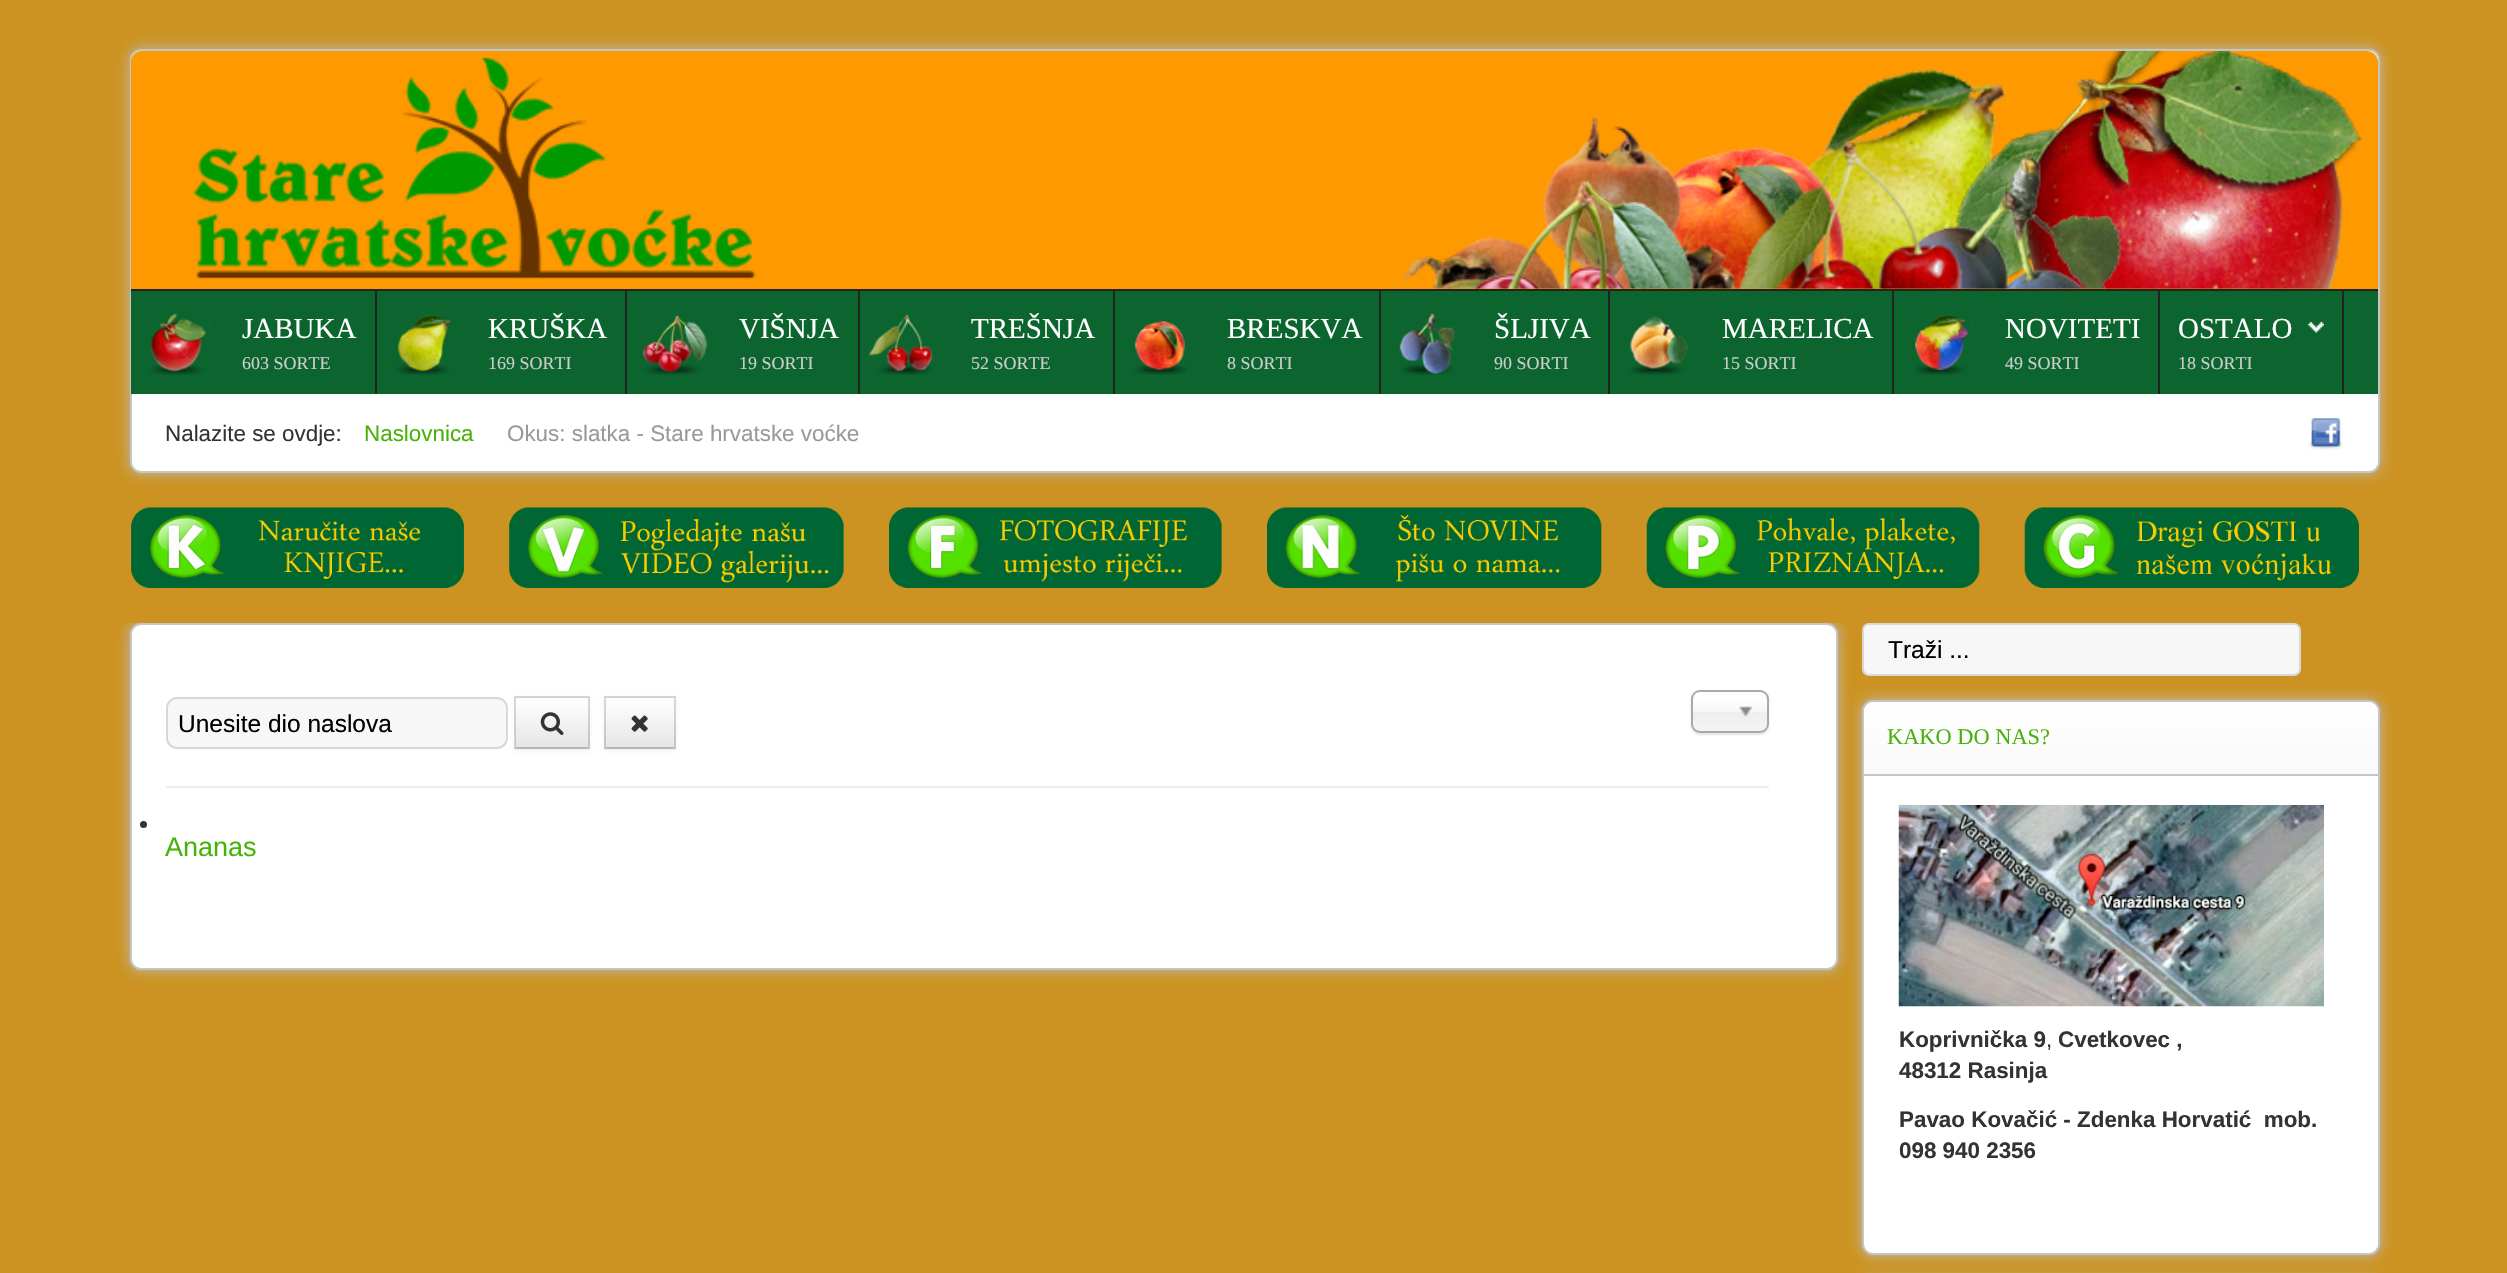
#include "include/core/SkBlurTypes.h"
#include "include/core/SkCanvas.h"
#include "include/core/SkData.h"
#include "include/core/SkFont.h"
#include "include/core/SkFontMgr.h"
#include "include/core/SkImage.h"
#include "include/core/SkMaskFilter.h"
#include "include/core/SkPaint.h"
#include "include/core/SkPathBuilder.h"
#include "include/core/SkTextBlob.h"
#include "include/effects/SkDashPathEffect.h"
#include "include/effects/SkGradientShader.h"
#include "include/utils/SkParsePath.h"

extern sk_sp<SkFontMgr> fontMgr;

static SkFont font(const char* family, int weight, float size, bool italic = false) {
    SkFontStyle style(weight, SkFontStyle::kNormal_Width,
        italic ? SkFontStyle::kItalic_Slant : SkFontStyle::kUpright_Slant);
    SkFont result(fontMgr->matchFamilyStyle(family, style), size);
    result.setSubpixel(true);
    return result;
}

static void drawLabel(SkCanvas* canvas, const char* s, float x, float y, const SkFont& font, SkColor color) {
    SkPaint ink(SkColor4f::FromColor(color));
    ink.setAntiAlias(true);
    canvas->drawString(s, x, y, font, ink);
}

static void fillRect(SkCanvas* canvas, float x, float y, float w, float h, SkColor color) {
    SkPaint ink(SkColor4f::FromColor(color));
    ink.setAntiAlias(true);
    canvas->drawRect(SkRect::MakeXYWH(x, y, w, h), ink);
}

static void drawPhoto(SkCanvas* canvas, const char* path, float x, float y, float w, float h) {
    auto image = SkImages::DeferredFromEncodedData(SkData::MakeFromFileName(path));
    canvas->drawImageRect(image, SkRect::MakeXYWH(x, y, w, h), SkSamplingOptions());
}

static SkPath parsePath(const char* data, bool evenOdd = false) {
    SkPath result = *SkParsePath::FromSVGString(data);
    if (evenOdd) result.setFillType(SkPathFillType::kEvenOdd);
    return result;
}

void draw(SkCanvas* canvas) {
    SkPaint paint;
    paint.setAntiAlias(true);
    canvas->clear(0xFFCC9322);
    paint.setColor(0xFFBDBDBD);
    paint.setMaskFilter(SkMaskFilter::MakeBlur(kNormal_SkBlurStyle, 7));
    canvas->drawRoundRect(SkRect::MakeXYWH(130, 49, 2250, 424), 11, 11, paint);
    paint.setMaskFilter(nullptr);
    paint.setColor(0xFFFFFFFF);
    canvas->drawRoundRect(SkRect::MakeXYWH(131, 50, 2248, 422), 10, 10, paint);
    paint.setStroke(true);
    paint.setStrokeWidth(2);
    paint.setColor(0xFFC5C5C5);
    canvas->drawRoundRect(SkRect::MakeXYWH(131, 50, 2248, 422), 10, 10, paint);
    paint.setStroke(false);
    paint.setColor(0xFFFE9900);
    canvas->drawPath(parsePath("M142 51H2367C2373 51 2378 56 2378 62V289H131V62C131 56 136 51 142 51Z"), paint);
    drawPhoto(canvas, "assets/img1.png", 1385, 50, 977, 239);
    drawPhoto(canvas, "assets/img2.png", 193, 57, 563, 222);
    fillRect(canvas, 131, 291, 2247, 103, 0xFF0C642F);
    fillRect(canvas, 131, 289, 2247, 2, 0xFF222222);
    fillRect(canvas, 375, 291, 2, 103, 0xFF222222);
    drawPhoto(canvas, "assets/img3.png", 150, 313, 60, 62);
    SkFont font1 = font("Liberation Serif", 400, 29);
    drawLabel(canvas, "JABUKA", 242, 338, font1, 0xFFFFFFFF);
    SkFont font2 = font("Liberation Serif", 400, 18);
    drawLabel(canvas, "603 SORTE", 242, 369, font2, 0xFFCCCCCC);
    fillRect(canvas, 625, 291, 2, 103, 0xFF222222);
    drawPhoto(canvas, "assets/img4.png", 396, 314, 56, 61);
    drawLabel(canvas, "KRUŠKA", 488, 338, font1, 0xFFFFFFFF);
    drawLabel(canvas, "169 SORTI", 488, 369, font2, 0xFFCCCCCC);
    fillRect(canvas, 858, 291, 2, 103, 0xFF222222);
    drawPhoto(canvas, "assets/img5.png", 643, 315, 65, 60);
    drawLabel(canvas, "VIŠNJA", 739, 338, font1, 0xFFFFFFFF);
    drawLabel(canvas, "19 SORTI", 739, 369, font2, 0xFFCCCCCC);
    fillRect(canvas, 1113, 291, 2, 103, 0xFF222222);
    drawPhoto(canvas, "assets/img6.png", 869, 314, 64, 61);
    drawLabel(canvas, "TREŠNJA", 971, 338, font1, 0xFFFFFFFF);
    drawLabel(canvas, "52 SORTE", 971, 369, font2, 0xFFCCCCCC);
    fillRect(canvas, 1379, 291, 2, 103, 0xFF222222);
    drawPhoto(canvas, "assets/img7.png", 1134, 321, 53, 54);
    drawLabel(canvas, "BRESKVA", 1227, 338, font1, 0xFFFFFFFF);
    drawLabel(canvas, "8 SORTI", 1227, 369, font2, 0xFFCCCCCC);
    fillRect(canvas, 1608, 291, 2, 103, 0xFF222222);
    drawPhoto(canvas, "assets/img8.png", 1399, 313, 56, 62);
    drawLabel(canvas, "ŠLJIVA", 1494, 338, font1, 0xFFFFFFFF);
    drawLabel(canvas, "90 SORTI", 1494, 369, font2, 0xFFCCCCCC);
    fillRect(canvas, 1892, 291, 2, 103, 0xFF222222);
    drawPhoto(canvas, "assets/img9.png", 1629, 315, 59, 60);
    drawLabel(canvas, "MARELICA", 1722, 338, font1, 0xFFFFFFFF);
    drawLabel(canvas, "15 SORTI", 1722, 369, font2, 0xFFCCCCCC);
    fillRect(canvas, 2158, 291, 2, 103, 0xFF222222);
    drawPhoto(canvas, "assets/img10.png", 1914, 314, 59, 61);
    drawLabel(canvas, "NOVITETI", 2005, 338, font1, 0xFFFFFFFF);
    drawLabel(canvas, "49 SORTI", 2005, 369, font2, 0xFFCCCCCC);
    fillRect(canvas, 2342, 291, 2, 103, 0xFF222222);
    drawLabel(canvas, "OSTALO", 2178, 338, font1, 0xFFFFFFFF);
    drawPhoto(canvas, "assets/img11.png", 2308, 322, 16, 11);
    drawLabel(canvas, "18 SORTI", 2178, 369, font2, 0xFFCCCCCC);
    SkFont font3 = font("Liberation Sans", 400, 22.4f);
    drawLabel(canvas, "Nalazite se ovdje:", 165, 441, font3, 0xFF333333);
    drawLabel(canvas, "Naslovnica", 364, 441, font3, 0xFF47B309);
    drawLabel(canvas, "Okus: slatka - Stare hrvatske voćke", 507, 441, font3, 0xFF999999);
    drawPhoto(canvas, "assets/img12.png", 2308, 418, 35, 32);
    drawPhoto(canvas, "assets/img13.png", 131, 507, 333, 81);
    drawPhoto(canvas, "assets/img14.png", 509, 507, 335, 81);
    drawPhoto(canvas, "assets/img15.png", 889, 507, 333, 81);
    drawPhoto(canvas, "assets/img16.png", 1267, 507, 335, 81);
    drawPhoto(canvas, "assets/img17.png", 1646, 507, 334, 81);
    drawPhoto(canvas, "assets/img18.png", 2024, 507, 335, 81);
    canvas->save();
    canvas->clipRect(SkRect::MakeXYWH(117, 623, 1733, 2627));
    paint.setColor(0xFFBDBDBD);
    paint.setMaskFilter(SkMaskFilter::MakeBlur(kNormal_SkBlurStyle, 7));
    canvas->drawRoundRect(SkRect::MakeXYWH(130, 623, 1708, 347), 11, 11, paint);
    paint.setMaskFilter(nullptr);
    canvas->restore();
    paint.setColor(0xFFFFFFFF);
    canvas->drawRoundRect(SkRect::MakeXYWH(131, 624, 1706, 345), 10, 10, paint);
    paint.setStroke(true);
    paint.setColor(0xFFC5C5C5);
    canvas->drawRoundRect(SkRect::MakeXYWH(131, 624, 1706, 345), 10, 10, paint);
    paint.setStroke(false);
    paint.setColor(0xFFF7F7F7);
    canvas->drawRoundRect(SkRect::MakeXYWH(167, 698, 340, 50), 10, 10, paint);
    paint.setStroke(true);
    paint.setColor(0xFFD8D8D8);
    canvas->drawRoundRect(SkRect::MakeXYWH(167, 698, 340, 50), 10, 10, paint);
    SkFont font4 = font("Liberation Sans", 400, 24.5f);
    drawLabel(canvas, "Unesite dio naslova", 178, 732, font4, 0xFF000000);
    paint.setStroke(false);
    paint.setColor(0x0D000000);
    paint.setMaskFilter(SkMaskFilter::MakeBlur(kNormal_SkBlurStyle, 2));
    canvas->drawRect(SkRect::MakeXYWH(515, 698, 75, 53), paint);
    paint.setMaskFilter(nullptr);
    fillRect(canvas, 515, 697, 75, 52, 0xFFF5F5F5);
    {
        const SkColor colors[] = {0xFFFFFFFF, 0xFFE6E6E6};
        const float stops[] = {0, 1};
        const SkPoint ends[] = {{552, 698}, {552, 747}};
        paint.setShader(SkGradientShader::MakeLinear(ends, colors, stops, 2, SkTileMode::kClamp));
        paint.setAlpha(255);
    }
    canvas->drawRect(SkRect::MakeXYWH(515, 698, 75, 49), paint);
    paint.setShader(nullptr);
    paint.setColor(0x26000000);
    canvas->drawPath(parsePath("M514 696H590L588 698H516Z"), paint);
    canvas->drawPath(parsePath("M590 696V749L588 747V698Z"), paint);
    paint.setColor(0x40000000);
    canvas->drawPath(parsePath("M590 749H514L516 747H588Z"), paint);
    paint.setColor(0x26000000);
    canvas->drawPath(parsePath("M514 749V696L516 698V747Z"), paint);
    drawPhoto(canvas, "assets/img19.png", 540, 712, 24, 23);
    paint.setColor(0x0D000000);
    paint.setMaskFilter(SkMaskFilter::MakeBlur(kNormal_SkBlurStyle, 2));
    canvas->drawRect(SkRect::MakeXYWH(604, 698, 72, 53), paint);
    paint.setMaskFilter(nullptr);
    fillRect(canvas, 604, 697, 72, 52, 0xFFF5F5F5);
    {
        const SkColor colors[] = {0xFFFFFFFF, 0xFFE6E6E6};
        const float stops[] = {0, 1};
        const SkPoint ends[] = {{640, 698}, {640, 747}};
        paint.setShader(SkGradientShader::MakeLinear(ends, colors, stops, 2, SkTileMode::kClamp));
        paint.setAlpha(255);
    }
    canvas->drawRect(SkRect::MakeXYWH(604, 698, 72, 49), paint);
    paint.setShader(nullptr);
    paint.setColor(0x26000000);
    canvas->drawPath(parsePath("M604 696H676L674 698H606Z"), paint);
    canvas->drawPath(parsePath("M676 696V749L674 747V698Z"), paint);
    paint.setColor(0x40000000);
    canvas->drawPath(parsePath("M676 749H604L606 747H674Z"), paint);
    paint.setColor(0x26000000);
    canvas->drawPath(parsePath("M604 749V696L606 698V747Z"), paint);
    drawPhoto(canvas, "assets/img20.png", 631, 715, 17, 17);
    paint.setColor(0x1A000000);
    paint.setMaskFilter(SkMaskFilter::MakeBlur(kNormal_SkBlurStyle, 1));
    canvas->drawRoundRect(SkRect::MakeXYWH(1691, 691, 78, 44), 9, 9, paint);
    paint.setMaskFilter(nullptr);
    {
        const SkColor colors[] = {0xFFFFFFFF, 0xFFF6F6F6, 0xFFEEEEEE, 0xFFF4F4F4};
        const float stops[] = {0.2f, 0.5f, 0.52f, 1};
        const SkPoint ends[] = {{1730, 691}, {1730, 732}};
        paint.setShader(SkGradientShader::MakeLinear(ends, colors, stops, 4, SkTileMode::kClamp));
        paint.setAlpha(255);
    }
    canvas->drawRoundRect(SkRect::MakeXYWH(1692, 691, 76, 41), 7, 7, paint);
    paint.setStroke(true);
    paint.setShader(nullptr);
    paint.setColor(0xFFAAAAAA);
    canvas->drawRoundRect(SkRect::MakeXYWH(1692, 691, 76, 41), 8, 8, paint);
    drawPhoto(canvas, "assets/img21.png", 1739, 706, 14, 11);
    fillRect(canvas, 166, 786, 1603, 2, 0xFFEEEEEE);
    paint.setStroke(false);
    paint.setColor(0xFF333333);
    canvas->drawCircle(143.5f, 824.5f, 3.5f, paint);
    SkFont font5 = font("Liberation Sans", 400, 27);
    drawLabel(canvas, "Ananas", 165, 856, font5, 0xFF47B309);
    paint.setColor(0xFFF7F7F7);
    canvas->drawRoundRect(SkRect::MakeXYWH(1863, 624, 437, 51), 6, 6, paint);
    paint.setStroke(true);
    paint.setColor(0xFFD8D8D8);
    canvas->drawRoundRect(SkRect::MakeXYWH(1863, 624, 437, 51), 6, 6, paint);
    drawLabel(canvas, "Traži ...", 1888, 658, font4, 0xFF000000);
    canvas->save();
    canvas->clipRect(SkRect::MakeXYWH(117, 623, 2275, 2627));
    paint.setStroke(false);
    paint.setColor(0xFFBDBDBD);
    paint.setMaskFilter(SkMaskFilter::MakeBlur(kNormal_SkBlurStyle, 7));
    canvas->drawRoundRect(SkRect::MakeXYWH(1862, 700, 518, 555), 11, 11, paint);
    paint.setMaskFilter(nullptr);
    canvas->restore();
    paint.setColor(0xFFFFFFFF);
    canvas->drawRoundRect(SkRect::MakeXYWH(1863, 701, 516, 553), 10, 10, paint);
    paint.setStroke(true);
    paint.setColor(0xFFC5C5C5);
    canvas->drawRoundRect(SkRect::MakeXYWH(1863, 701, 516, 553), 10, 10, paint);
    paint.setStroke(false);
    {
        const SkColor colors[] = {0xFFFFFFFF, 0xFFF9F9F9};
        const float stops[] = {0, 1};
        const SkPoint ends[] = {{2121, 702}, {2121, 774}};
        paint.setShader(SkGradientShader::MakeLinear(ends, colors, stops, 2, SkTileMode::kClamp));
        paint.setAlpha(255);
    }
    canvas->drawPath(parsePath("M1875 702H2367C2373 702 2378 707 2378 713V774H1864V713C1864 707 1869 702 1875 702Z"), paint);
    fillRect(canvas, 1864, 774, 514, 2, 0xFFC5C5C5);
    SkFont font6 = font("Liberation Serif", 400, 22.4f);
    drawLabel(canvas, "KAKO DO NAS?", 1887, 744, font6, 0xFF47B309);
    drawPhoto(canvas, "assets/img22.png", 1898, 805, 426, 202);
    SkFont font7 = font("Liberation Sans", 700, 22.4f);
    drawLabel(canvas, "Koprivnička 9", 1899, 1047, font7, 0xFF333333);
    drawLabel(canvas, ",", 2046, 1047, font3, 0xFF333333);
    drawLabel(canvas, "Cvetkovec ,", 2058, 1047, font7, 0xFF333333);
    drawLabel(canvas, "48312 Rasinja", 1899, 1078, font7, 0xFF333333);
    drawLabel(canvas, "Pavao Kovačić - Zdenka Horvatić  mob.", 1899, 1127, font7, 0xFF333333);
    drawLabel(canvas, "098 940 2356", 1899, 1158, font7, 0xFF333333);
    paint.setShader(nullptr);
    paint.setColor(0xFFBDBDBD);
    paint.setMaskFilter(SkMaskFilter::MakeBlur(kNormal_SkBlurStyle, 7));
    canvas->drawRoundRect(SkRect::MakeXYWH(1862, 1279, 518, 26), 11, 11, paint);
    paint.setMaskFilter(nullptr);
}
